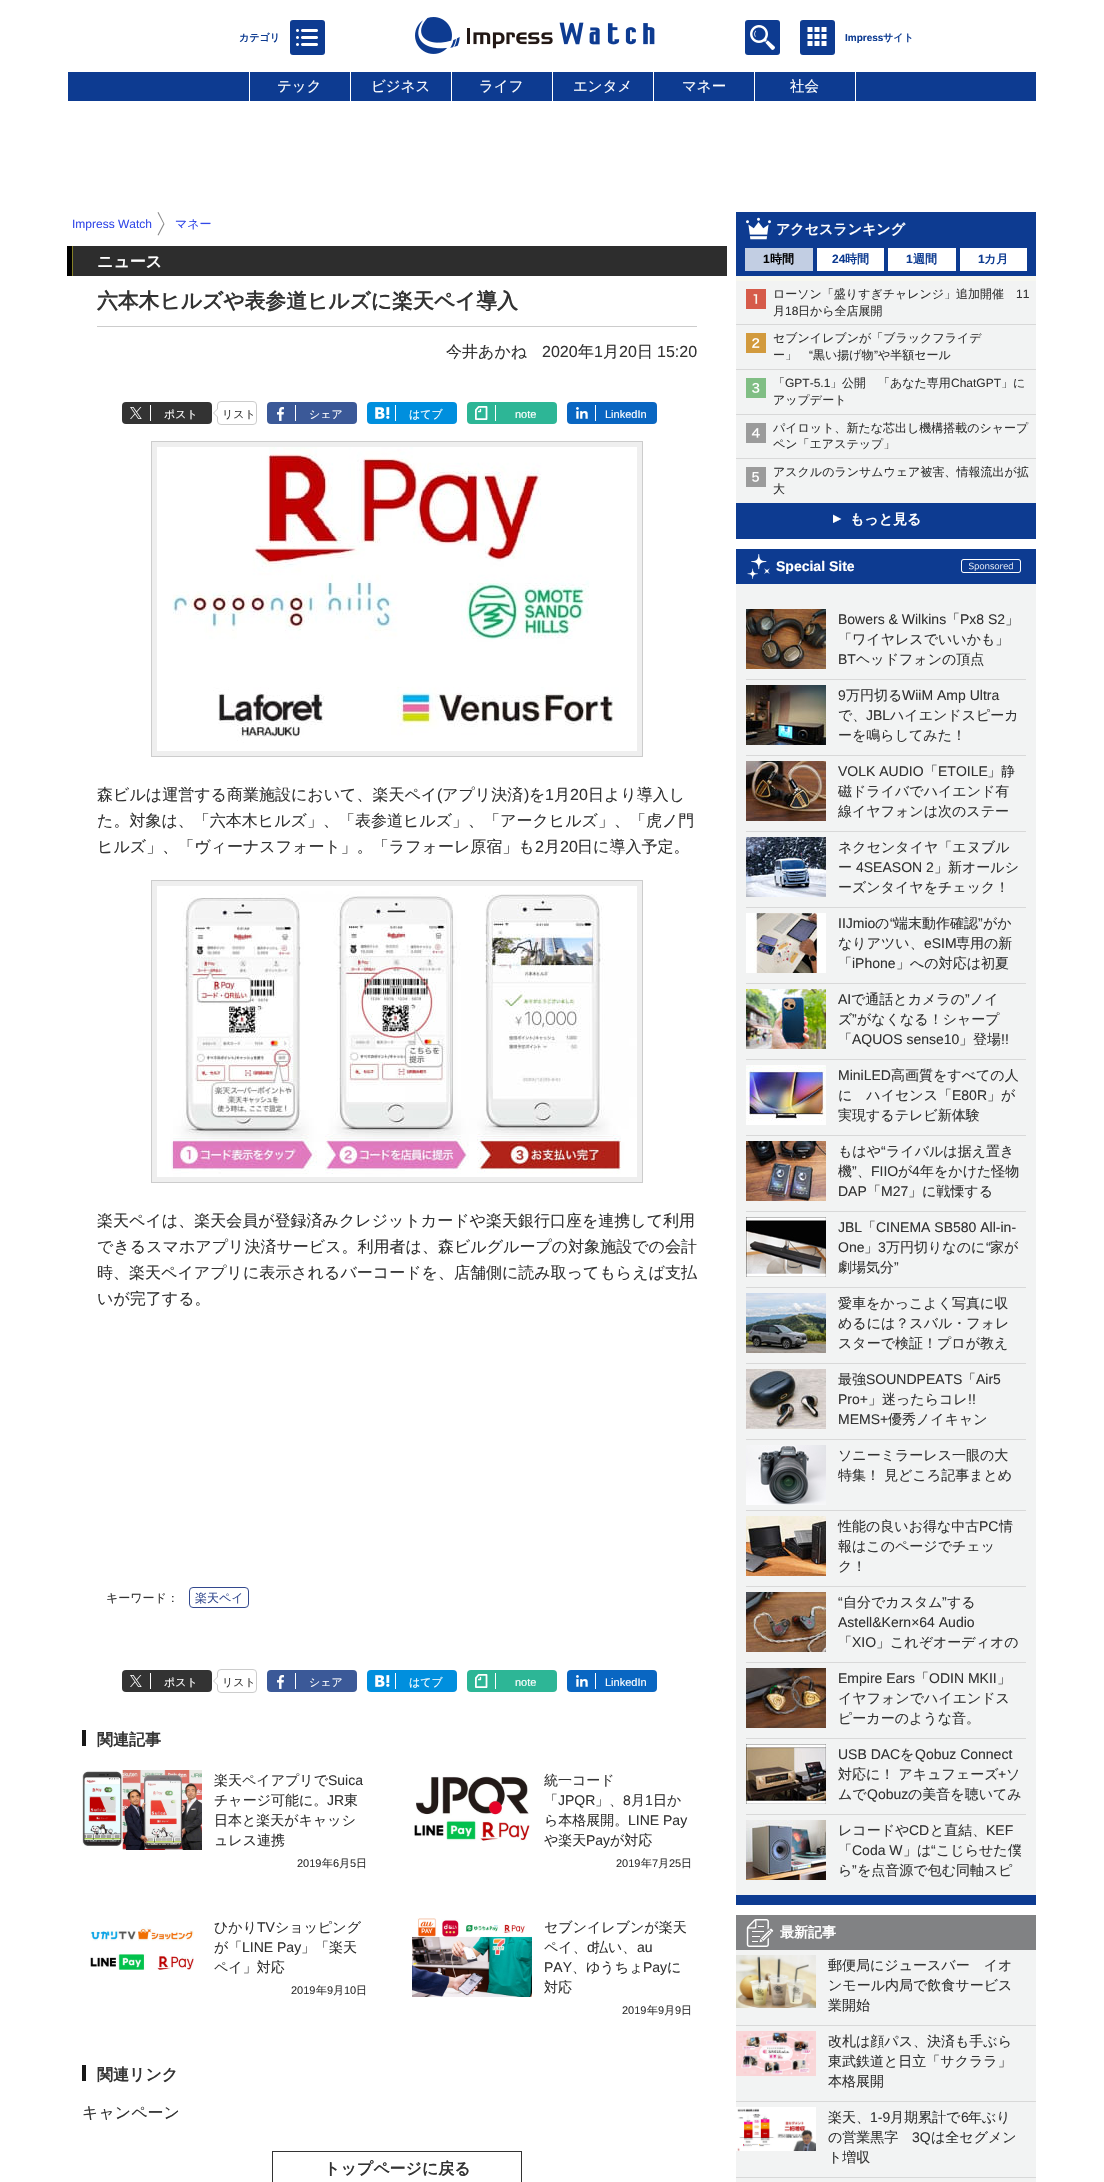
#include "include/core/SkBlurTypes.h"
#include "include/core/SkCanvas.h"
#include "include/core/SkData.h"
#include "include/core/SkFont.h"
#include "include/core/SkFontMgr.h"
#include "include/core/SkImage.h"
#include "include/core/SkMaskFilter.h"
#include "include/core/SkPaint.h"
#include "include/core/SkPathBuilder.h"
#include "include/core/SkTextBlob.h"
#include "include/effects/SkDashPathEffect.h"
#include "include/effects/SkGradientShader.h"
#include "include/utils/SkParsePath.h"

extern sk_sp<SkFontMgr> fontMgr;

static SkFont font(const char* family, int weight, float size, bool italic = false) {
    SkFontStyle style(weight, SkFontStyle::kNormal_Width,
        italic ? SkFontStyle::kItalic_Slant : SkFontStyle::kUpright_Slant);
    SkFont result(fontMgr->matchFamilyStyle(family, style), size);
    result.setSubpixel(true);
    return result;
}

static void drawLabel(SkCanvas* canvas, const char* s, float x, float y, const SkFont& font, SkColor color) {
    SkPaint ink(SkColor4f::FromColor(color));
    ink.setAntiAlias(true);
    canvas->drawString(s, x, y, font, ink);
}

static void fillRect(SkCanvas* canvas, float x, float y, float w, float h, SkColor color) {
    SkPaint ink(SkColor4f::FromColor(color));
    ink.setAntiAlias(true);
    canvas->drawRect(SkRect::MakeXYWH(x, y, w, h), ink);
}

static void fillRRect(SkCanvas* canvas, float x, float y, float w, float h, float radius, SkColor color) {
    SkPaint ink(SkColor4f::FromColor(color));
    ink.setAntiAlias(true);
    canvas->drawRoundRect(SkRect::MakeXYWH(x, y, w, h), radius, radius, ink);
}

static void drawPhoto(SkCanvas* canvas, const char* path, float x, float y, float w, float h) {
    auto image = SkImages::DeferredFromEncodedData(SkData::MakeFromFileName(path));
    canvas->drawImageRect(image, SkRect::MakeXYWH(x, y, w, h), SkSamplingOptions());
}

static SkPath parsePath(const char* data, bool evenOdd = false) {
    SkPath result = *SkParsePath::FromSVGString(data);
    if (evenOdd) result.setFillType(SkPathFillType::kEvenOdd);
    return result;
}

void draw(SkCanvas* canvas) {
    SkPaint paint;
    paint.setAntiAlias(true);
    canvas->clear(0xFFFFFFFF);
    fillRRect(canvas, 290, 20, 35, 35, 3, 0xFF0D3B91);
    SkFont font1 = font("WenQuanYi Zen Hei", 700, 10);
    drawLabel(canvas, "カテゴリ", 239, 41, font1, 0xFF0D3B91);
    drawPhoto(canvas, "assets/img1.png", 296, 29, 22, 17);
    drawPhoto(canvas, "assets/img2.png", 415, 17, 240, 37);
    fillRRect(canvas, 745, 20, 35, 35, 3, 0xFF0D3B91);
    drawPhoto(canvas, "assets/img3.png", 750, 25, 25, 25);
    fillRRect(canvas, 800, 20, 35, 35, 3, 0xFF0D3B91);
    drawPhoto(canvas, "assets/img4.png", 807, 27, 20, 19);
    SkFont font2 = font("Liberation Sans", 700, 10);
    drawLabel(canvas, "Impress", 845, 41, font2, 0xFF0D3B91);
    drawLabel(canvas, "サイト", 883, 41, font1, 0xFF0D3B91);
    fillRect(canvas, 68, 72, 181, 29, 0xFF0D3B91);
    fillRect(canvas, 250, 72, 100, 29, 0xFF0D3B91);
    SkFont font3 = font("WenQuanYi Zen Hei", 500, 14.5f);
    drawLabel(canvas, "テック", 277, 91, font3, 0xFFFFFFFF);
    fillRect(canvas, 351, 72, 100, 29, 0xFF0D3B91);
    drawLabel(canvas, "ビジネス", 371, 91, font3, 0xFFFFFFFF);
    fillRect(canvas, 452, 72, 100, 29, 0xFF0D3B91);
    drawLabel(canvas, "ライフ", 479, 91, font3, 0xFFFFFFFF);
    fillRect(canvas, 553, 72, 100, 29, 0xFF0D3B91);
    drawLabel(canvas, "エンタメ", 573, 91, font3, 0xFFFFFFFF);
    fillRect(canvas, 654, 72, 100, 29, 0xFF0D3B91);
    drawLabel(canvas, "マネー", 682, 91, font3, 0xFFFFFFFF);
    fillRect(canvas, 755, 72, 100, 29, 0xFF0D3B91);
    drawLabel(canvas, "社会", 790, 91, font3, 0xFFFFFFFF);
    fillRect(canvas, 856, 72, 180, 29, 0xFF0D3B91);
    paint.setColor(0xFF8A8A8A);
    canvas->drawPath(parsePath("M157.5 212.5L163.5 224V223.5L157.5 235L158.5 235.5L164.5 224L158.5 212Z"), paint);
    SkFont font4 = font("Liberation Sans", 400, 12);
    drawLabel(canvas, "Impress Watch", 72, 228, font4, 0xFF3349E8);
    SkFont font5 = font("WenQuanYi Zen Hei", 500, 12);
    drawLabel(canvas, "マネー", 175, 228, font5, 0xFF3349E8);
    fillRect(canvas, 73, 246, 654, 30, 0xFF2D2D2D);
    fillRect(canvas, 67, 246, 5, 30, 0xFF000000);
    fillRect(canvas, 72, 246, 1, 30, 0xFF858026);
    SkFont font6 = font("WenQuanYi Zen Hei", 700, 16);
    drawLabel(canvas, "ニュース", 97, 267, font6, 0xFFFFFFFF);
    SkFont font7 = font("WenQuanYi Zen Hei", 700, 20.8f);
    drawLabel(canvas, "六本木ヒルズや表参道ヒルズに楽天ペイ導入", 97, 308, font7, 0xFF333333);
    fillRect(canvas, 97, 326, 600, 1, 0xFFCCCCCC);
    SkFont font8 = font("WenQuanYi Zen Hei", 500, 16);
    drawLabel(canvas, "今井あかね", 446, 357, font8, 0xFF333333);
    SkFont font9 = font("Liberation Sans", 400, 16);
    drawLabel(canvas, "2020", 542, 357, font9, 0xFF333333);
    drawLabel(canvas, "年", 578, 357, font8, 0xFF333333);
    drawLabel(canvas, "1", 594, 357, font9, 0xFF333333);
    drawLabel(canvas, "月", 603, 357, font8, 0xFF333333);
    drawLabel(canvas, "20", 619, 357, font9, 0xFF333333);
    drawLabel(canvas, "日", 637, 357, font8, 0xFF333333);
    drawLabel(canvas, "15:20", 657, 357, font9, 0xFF333333);
    fillRRect(canvas, 122, 402, 90, 22, 4, 0xFF333333);
    drawPhoto(canvas, "assets/img5.png", 130, 407, 12, 12);
    fillRect(canvas, 150, 405, 1, 16, 0xFFFFFFFF);
    SkFont font10 = font("WenQuanYi Zen Hei", 500, 11);
    drawLabel(canvas, "ポスト", 164, 418, font10, 0xFFFFFFFF);
    paint.setStroke(true);
    paint.setStrokeWidth(1);
    paint.setColor(0xFFCCCCCC);
    canvas->drawRoundRect(SkRect::MakeXYWH(217.5f, 401.5f, 39, 23), 3.5f, 3.5f, paint);
    paint.setStroke(false);
    canvas->drawPath(parsePath("M218 408V418L213 413Z"), paint);
    paint.setColor(0xFFFFFFFF);
    canvas->drawPath(parsePath("M219 408V418L214 413Z"), paint);
    drawLabel(canvas, "リスト", 222, 418, font10, 0xFF333333);
    fillRRect(canvas, 267, 402, 90, 22, 4, 0xFF3B5998);
    drawPhoto(canvas, "assets/img6.png", 277, 407, 7, 14);
    fillRect(canvas, 295, 405, 1, 16, 0xFFFFFFFF);
    drawLabel(canvas, "シェア", 309, 418, font10, 0xFFFFFFFF);
    fillRRect(canvas, 367, 402, 90, 22, 4, 0xFF008FDE);
    drawPhoto(canvas, "assets/img7.png", 375, 407, 15, 12);
    fillRect(canvas, 395, 405, 1, 16, 0xFFFFFFFF);
    drawLabel(canvas, "はてブ", 409, 418, font10, 0xFFFFFFFF);
    fillRRect(canvas, 467, 402, 90, 22, 4, 0xFF2DB696);
    drawPhoto(canvas, "assets/img8.png", 475, 406, 13, 14);
    fillRect(canvas, 495, 405, 1, 16, 0xFFFFFFFF);
    SkFont font11 = font("Liberation Sans", 400, 11);
    drawLabel(canvas, "note", 515, 418, font11, 0xFFFFFFFF);
    fillRRect(canvas, 567, 402, 90, 22, 4, 0xFF0966C2);
    drawPhoto(canvas, "assets/img9.png", 576, 407, 12, 12);
    fillRect(canvas, 595, 405, 1, 16, 0xFFFFFFFF);
    drawLabel(canvas, "LinkedIn", 605, 418, font11, 0xFFFFFFFF);
    paint.setColor(0xFFEFEFEF);
    canvas->drawRect(SkRect::MakeXYWH(151.5f, 441.5f, 491, 315), paint);
    paint.setStroke(true);
    paint.setColor(0xFFCCCCCC);
    canvas->drawRect(SkRect::MakeXYWH(151.5f, 441.5f, 491, 315), paint);
    drawPhoto(canvas, "assets/img10.png", 157, 447, 480, 304);
    drawLabel(canvas, "森ビルは運営する商業施設において、楽天ペイ", 97, 800, font8, 0xFF333333);
    drawLabel(canvas, "(", 437, 800, font9, 0xFF333333);
    drawLabel(canvas, "アプリ決済", 442, 800, font8, 0xFF333333);
    drawLabel(canvas, ")", 524, 800, font9, 0xFF333333);
    drawLabel(canvas, "を", 529, 800, font8, 0xFF333333);
    drawLabel(canvas, "1", 545, 800, font9, 0xFF333333);
    drawLabel(canvas, "月", 554, 800, font8, 0xFF333333);
    drawLabel(canvas, "20", 570, 800, font9, 0xFF333333);
    drawLabel(canvas, "日より導入し", 588, 800, font8, 0xFF333333);
    drawLabel(canvas, "た。対象は、「六本木ヒルズ」、「表参道ヒルズ」、「アークヒルズ」、「虎ノ門", 97, 826, font8, 0xFF333333);
    drawLabel(canvas, "ヒルズ」、「ヴィーナスフォート」。「ラフォーレ原宿」も", 97, 852, font8, 0xFF333333);
    drawLabel(canvas, "2", 535, 852, font9, 0xFF333333);
    drawLabel(canvas, "月", 544, 852, font8, 0xFF333333);
    drawLabel(canvas, "20", 560, 852, font9, 0xFF333333);
    drawLabel(canvas, "日に導入予定。", 577, 852, font8, 0xFF333333);
    paint.setStroke(false);
    paint.setColor(0xFFEFEFEF);
    canvas->drawRect(SkRect::MakeXYWH(151.5f, 880.5f, 491, 302), paint);
    paint.setStroke(true);
    paint.setColor(0xFFCCCCCC);
    canvas->drawRect(SkRect::MakeXYWH(151.5f, 880.5f, 491, 302), paint);
    drawPhoto(canvas, "assets/img11.png", 157, 886, 480, 291);
    drawLabel(canvas, "楽天ペイは、楽天会員が登録済みクレジットカードや楽天銀行口座を連携して利用", 97, 1226, font8, 0xFF333333);
    drawLabel(canvas, "できるスマホアプリ決済サービス。利用者は、森ビルグループの対象施設での会計", 97, 1252, font8, 0xFF333333);
    drawLabel(canvas, "時、楽天ペイアプリに表示されるバーコードを、店舗側に読み取ってもらえば支払", 97, 1278, font8, 0xFF333333);
    drawLabel(canvas, "いが完了する。", 97, 1304, font8, 0xFF333333);
    drawLabel(canvas, "キーワード：", 106, 1602, font5, 0xFF333333);
    paint.setColor(0xFF33498E);
    canvas->drawRoundRect(SkRect::MakeXYWH(189.5f, 1587.5f, 59, 20), 3.5f, 3.5f, paint);
    drawLabel(canvas, "楽天ペイ", 195, 1602, font5, 0xFF33498E);
    fillRRect(canvas, 122, 1670, 90, 22, 4, 0xFF333333);
    drawPhoto(canvas, "assets/img5.png", 130, 1675, 12, 12);
    fillRect(canvas, 150, 1673, 1, 16, 0xFFFFFFFF);
    drawLabel(canvas, "ポスト", 164, 1686, font10, 0xFFFFFFFF);
    paint.setColor(0xFFCCCCCC);
    canvas->drawRoundRect(SkRect::MakeXYWH(217.5f, 1669.5f, 39, 23), 3.5f, 3.5f, paint);
    paint.setStroke(false);
    canvas->drawPath(parsePath("M218 1676V1686L213 1681Z"), paint);
    paint.setColor(0xFFFFFFFF);
    canvas->drawPath(parsePath("M219 1676V1686L214 1681Z"), paint);
    drawLabel(canvas, "リスト", 222, 1686, font10, 0xFF333333);
    fillRRect(canvas, 267, 1670, 90, 22, 4, 0xFF3B5998);
    drawPhoto(canvas, "assets/img6.png", 277, 1675, 7, 14);
    fillRect(canvas, 295, 1673, 1, 16, 0xFFFFFFFF);
    drawLabel(canvas, "シェア", 309, 1686, font10, 0xFFFFFFFF);
    fillRRect(canvas, 367, 1670, 90, 22, 4, 0xFF008FDE);
    drawPhoto(canvas, "assets/img7.png", 375, 1675, 15, 12);
    fillRect(canvas, 395, 1673, 1, 16, 0xFFFFFFFF);
    drawLabel(canvas, "はてブ", 409, 1686, font10, 0xFFFFFFFF);
    fillRRect(canvas, 467, 1670, 90, 22, 4, 0xFF2DB696);
    drawPhoto(canvas, "assets/img8.png", 475, 1674, 13, 14);
    fillRect(canvas, 495, 1673, 1, 16, 0xFFFFFFFF);
    drawLabel(canvas, "note", 515, 1686, font11, 0xFFFFFFFF);
    fillRRect(canvas, 567, 1670, 90, 22, 4, 0xFF0966C2);
    drawPhoto(canvas, "assets/img9.png", 576, 1675, 12, 12);
    fillRect(canvas, 595, 1673, 1, 16, 0xFFFFFFFF);
    drawLabel(canvas, "LinkedIn", 605, 1686, font11, 0xFFFFFFFF);
    fillRect(canvas, 82, 1730, 4, 16, 0xFF181818);
    drawLabel(canvas, "関連記事", 97, 1745, font6, 0xFF333333);
    drawPhoto(canvas, "assets/img12.png", 82, 1770, 120, 80);
    SkFont font12 = font("WenQuanYi Zen Hei", 500, 14);
    drawLabel(canvas, "楽天ペイアプリで", 214, 1785, font12, 0xFF333333);
    SkFont font13 = font("Liberation Sans", 400, 14);
    drawLabel(canvas, "Suica", 328, 1785, font13, 0xFF333333);
    drawLabel(canvas, "チャージ可能に。", 214, 1805, font12, 0xFF333333);
    drawLabel(canvas, "JR", 327, 1805, font13, 0xFF333333);
    drawLabel(canvas, "東", 344, 1805, font12, 0xFF333333);
    drawLabel(canvas, "日本と楽天がキャッシ", 214, 1825, font12, 0xFF333333);
    drawLabel(canvas, "ュレス連携", 214, 1845, font12, 0xFF333333);
    drawLabel(canvas, "2019", 297, 1867, font11, 0xFF333333);
    drawLabel(canvas, "年", 322, 1867, font10, 0xFF333333);
    drawLabel(canvas, "6", 333, 1867, font11, 0xFF333333);
    drawLabel(canvas, "月", 339, 1867, font10, 0xFF333333);
    drawLabel(canvas, "5", 350, 1867, font11, 0xFF333333);
    drawLabel(canvas, "日", 356, 1867, font10, 0xFF333333);
    drawPhoto(canvas, "assets/img13.png", 414, 1776, 116, 65);
    drawLabel(canvas, "統一コード", 544, 1785, font12, 0xFF333333);
    drawLabel(canvas, "「", 544, 1805, font12, 0xFF333333);
    drawLabel(canvas, "JPQR", 558, 1805, font13, 0xFF333333);
    drawLabel(canvas, "」、", 595, 1805, font12, 0xFF333333);
    drawLabel(canvas, "8", 623, 1805, font13, 0xFF333333);
    drawLabel(canvas, "月", 631, 1805, font12, 0xFF333333);
    drawLabel(canvas, "1", 645, 1805, font13, 0xFF333333);
    drawLabel(canvas, "日か", 653, 1805, font12, 0xFF333333);
    drawLabel(canvas, "ら本格展開。", 544, 1825, font12, 0xFF333333);
    drawLabel(canvas, "LINE Pay", 628, 1825, font13, 0xFF333333);
    drawLabel(canvas, "や楽天", 544, 1845, font12, 0xFF333333);
    drawLabel(canvas, "Pay", 586, 1845, font13, 0xFF333333);
    drawLabel(canvas, "が対応", 610, 1845, font12, 0xFF333333);
    drawLabel(canvas, "2019", 616, 1867, font11, 0xFF333333);
    drawLabel(canvas, "年", 641, 1867, font10, 0xFF333333);
    drawLabel(canvas, "7", 652, 1867, font11, 0xFF333333);
    drawLabel(canvas, "月", 658, 1867, font10, 0xFF333333);
    drawLabel(canvas, "25", 669, 1867, font11, 0xFF333333);
    drawLabel(canvas, "日", 681, 1867, font10, 0xFF333333);
    drawPhoto(canvas, "assets/img14.png", 90, 1927, 104, 43);
    drawLabel(canvas, "ひかり", 214, 1932, font12, 0xFF333333);
    drawLabel(canvas, "TV", 257, 1932, font13, 0xFF333333);
    drawLabel(canvas, "ショッピング", 275, 1932, font12, 0xFF333333);
    drawLabel(canvas, "が「", 214, 1952, font12, 0xFF333333);
    drawLabel(canvas, "LINE Pay", 242, 1952, font13, 0xFF333333);
    drawLabel(canvas, "」「楽天", 301, 1952, font12, 0xFF333333);
    drawLabel(canvas, "ペイ」対応", 214, 1972, font12, 0xFF333333);
    drawLabel(canvas, "2019", 291, 1994, font11, 0xFF333333);
    drawLabel(canvas, "年", 316, 1994, font10, 0xFF333333);
    drawLabel(canvas, "9", 327, 1994, font11, 0xFF333333);
    drawLabel(canvas, "月", 333, 1994, font10, 0xFF333333);
    drawLabel(canvas, "10", 344, 1994, font11, 0xFF333333);
    drawLabel(canvas, "日", 356, 1994, font10, 0xFF333333);
    drawPhoto(canvas, "assets/img15.png", 412, 1918, 120, 79);
    drawLabel(canvas, "セブンイレブンが楽天", 544, 1932, font12, 0xFF333333);
    drawLabel(canvas, "ペイ、", 544, 1952, font12, 0xFF333333);
    drawLabel(canvas, "d", 587, 1952, font13, 0xFF333333);
    drawLabel(canvas, "払い、", 594, 1952, font12, 0xFF333333);
    drawLabel(canvas, "au", 637, 1952, font13, 0xFF333333);
    drawLabel(canvas, "PAY", 544, 1972, font13, 0xFF333333);
    drawLabel(canvas, "、ゆうちょ", 572, 1972, font12, 0xFF333333);
    drawLabel(canvas, "Pay", 643, 1972, font13, 0xFF333333);
    drawLabel(canvas, "に", 667, 1972, font12, 0xFF333333);
    drawLabel(canvas, "対応", 544, 1992, font12, 0xFF333333);
    drawLabel(canvas, "2019", 622, 2014, font11, 0xFF333333);
    drawLabel(canvas, "年", 647, 2014, font10, 0xFF333333);
    drawLabel(canvas, "9", 658, 2014, font11, 0xFF333333);
    drawLabel(canvas, "月", 664, 2014, font10, 0xFF333333);
    drawLabel(canvas, "9", 675, 2014, font11, 0xFF333333);
    drawLabel(canvas, "日", 681, 2014, font10, 0xFF333333);
    fillRect(canvas, 82, 2065, 4, 16, 0xFF181818);
    drawLabel(canvas, "関連リンク", 97, 2080, font6, 0xFF333333);
    drawLabel(canvas, "キャンペーン", 82, 2118, font8, 0xFF333333);
    paint.setStroke(true);
    paint.setColor(0xFF333333);
    canvas->drawRect(SkRect::MakeXYWH(272.5f, 2151.5f, 249, 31), paint);
    drawLabel(canvas, "トップページに戻る", 324, 2174, font6, 0xFF333333);
    fillRect(canvas, 736, 503, 300, 36, 0xFF0D3B91);
    fillRect(canvas, 736, 212, 300, 64, 0xFF0D3B91);
    drawPhoto(canvas, "assets/img16.png", 746, 217, 25, 23);
    SkFont font14 = font("WenQuanYi Zen Hei", 700, 14);
    drawLabel(canvas, "アクセスランキング", 776, 234, font14, 0xFFFFFFFF);
    fillRect(canvas, 745, 248, 68, 23, 0xFFC2CEE3);
    SkFont font15 = font("Liberation Sans", 700, 12);
    drawLabel(canvas, "1", 763, 263, font15, 0xFF000000);
    SkFont font16 = font("WenQuanYi Zen Hei", 700, 12);
    drawLabel(canvas, "時間", 770, 263, font16, 0xFF000000);
    fillRect(canvas, 817, 248, 67, 23, 0xFFFFFFFF);
    drawLabel(canvas, "24", 832, 263, font15, 0xFF0D3B91);
    drawLabel(canvas, "時間", 845, 263, font16, 0xFF0D3B91);
    fillRect(canvas, 888, 248, 68, 23, 0xFFFFFFFF);
    drawLabel(canvas, "1", 906, 263, font15, 0xFF0D3B91);
    drawLabel(canvas, "週間", 913, 263, font16, 0xFF0D3B91);
    fillRect(canvas, 960, 248, 67, 23, 0xFFFFFFFF);
    drawLabel(canvas, "1", 978, 263, font15, 0xFF0D3B91);
    drawLabel(canvas, "カ月", 984, 263, font16, 0xFF0D3B91);
    fillRect(canvas, 736, 276, 300, 5, 0xFFF7F7EF);
    fillRect(canvas, 736, 281, 300, 222, 0xFFF2F3F3);
    fillRect(canvas, 736, 324, 300, 1, 0xFFD8D8D8);
    drawPhoto(canvas, "assets/img17.png", 746, 289, 20, 20);
    drawLabel(canvas, "ローソン「盛りすぎチャレンジ」追加開催", 773, 298, font5, 0xFF333333);
    drawLabel(canvas, "11", 1016, 298, font4, 0xFF333333);
    drawLabel(canvas, "月", 773, 315, font5, 0xFF333333);
    drawLabel(canvas, "18", 785, 315, font4, 0xFF333333);
    drawLabel(canvas, "日から全店展開", 798, 315, font5, 0xFF333333);
    fillRect(canvas, 736, 369, 300, 1, 0xFFD8D8D8);
    drawPhoto(canvas, "assets/img18.png", 746, 333, 20, 20);
    drawLabel(canvas, "セブンイレブンが「ブラックフライデ", 773, 342, font5, 0xFF333333);
    drawLabel(canvas, "“", 809, 359, font4, 0xFF333333);
    drawLabel(canvas, "黒い揚げ物", 813, 359, font5, 0xFF333333);
    drawLabel(canvas, "”", 874, 359, font4, 0xFF333333);
    drawLabel(canvas, "や半額セール", 878, 359, font5, 0xFF333333);
    drawLabel(canvas, "ー」", 773, 359, font5, 0xFF333333);
    fillRect(canvas, 736, 414, 300, 1, 0xFFD8D8D8);
    drawPhoto(canvas, "assets/img19.png", 746, 378, 20, 20);
    drawLabel(canvas, "「", 773, 387, font5, 0xFF333333);
    drawLabel(canvas, "GPT-5.1", 785, 387, font4, 0xFF333333);
    drawLabel(canvas, "」公開　「あなた専用", 830, 387, font5, 0xFF333333);
    drawLabel(canvas, "ChatGPT", 951, 387, font4, 0xFF333333);
    drawLabel(canvas, "」に", 1001, 387, font5, 0xFF333333);
    drawLabel(canvas, "アップデート", 773, 404, font5, 0xFF333333);
    fillRect(canvas, 736, 458, 300, 1, 0xFFD8D8D8);
    drawPhoto(canvas, "assets/img20.png", 746, 423, 20, 20);
    drawLabel(canvas, "パイロット、新たな芯出し機構搭載のシャープ", 773, 432, font5, 0xFF333333);
    drawLabel(canvas, "ペン「エアステップ」", 773, 448, font5, 0xFF333333);
    drawPhoto(canvas, "assets/img21.png", 746, 467, 20, 20);
    drawLabel(canvas, "アスクルのランサムウェア被害、情報流出が拡", 773, 476, font5, 0xFF333333);
    drawLabel(canvas, "大", 773, 493, font5, 0xFF333333);
    SkFont font17 = font("Liberation Sans", 700, 14);
    canvas->save();
    canvas->rotate(90, 833, 512);
    drawLabel(canvas, "▲", 833, 512, font17, 0xFFFFFFFF);
    canvas->restore();
    drawLabel(canvas, "もっと見る", 850, 524, font14, 0xFFFFFFFF);
    fillRect(canvas, 736, 584, 300, 1311, 0xFFF2F3F3);
    fillRect(canvas, 736, 1895, 300, 10, 0xFF0D3B91);
    fillRect(canvas, 736, 549, 300, 35, 0xFF0D3B91);
    drawPhoto(canvas, "assets/img22.png", 747, 554, 23, 25);
    drawLabel(canvas, "Special Site", 776, 571, font17, 0xFFFFFFFF);
    drawPhoto(canvas, "assets/img23.png", 961, 559, 60, 14);
    fillRect(canvas, 746, 679, 280, 1, 0xFFD8D8D8);
    drawPhoto(canvas, "assets/img24.png", 746, 609, 80, 60);
    drawLabel(canvas, "Bowers & Wilkins", 838, 624, font13, 0xFF333333);
    drawLabel(canvas, "「", 946, 624, font12, 0xFF333333);
    drawLabel(canvas, "Px8 S2", 960, 624, font13, 0xFF333333);
    drawLabel(canvas, "」", 1005, 624, font12, 0xFF333333);
    drawLabel(canvas, "「ワイヤレスでいいかも」", 838, 644, font12, 0xFF333333);
    drawLabel(canvas, "BT", 838, 664, font13, 0xFF333333);
    drawLabel(canvas, "ヘッドフォンの頂点", 856, 664, font12, 0xFF333333);
    fillRect(canvas, 746, 755, 280, 1, 0xFFD8D8D8);
    drawPhoto(canvas, "assets/img25.png", 746, 685, 80, 60);
    drawLabel(canvas, "9", 838, 700, font13, 0xFF333333);
    drawLabel(canvas, "万円切る", 846, 700, font12, 0xFF333333);
    drawLabel(canvas, "WiiM Amp Ultra", 902, 700, font13, 0xFF333333);
    drawLabel(canvas, "で、", 838, 720, font12, 0xFF333333);
    drawLabel(canvas, "JBL", 866, 720, font13, 0xFF333333);
    drawLabel(canvas, "ハイエンドスピーカ", 890, 720, font12, 0xFF333333);
    drawLabel(canvas, "ーを鳴らしてみた！", 838, 740, font12, 0xFF333333);
    fillRect(canvas, 746, 831, 280, 1, 0xFFD8D8D8);
    drawPhoto(canvas, "assets/img26.png", 746, 761, 80, 60);
    drawLabel(canvas, "VOLK AUDIO", 838, 776, font13, 0xFF333333);
    drawLabel(canvas, "「", 924, 776, font12, 0xFF333333);
    drawLabel(canvas, "ETOILE", 938, 776, font13, 0xFF333333);
    drawLabel(canvas, "」静", 987, 776, font12, 0xFF333333);
    drawLabel(canvas, "磁ドライバでハイエンド有", 838, 796, font12, 0xFF333333);
    drawLabel(canvas, "線イヤフォンは次のステー", 838, 816, font12, 0xFF333333);
    fillRect(canvas, 746, 907, 280, 1, 0xFFD8D8D8);
    drawPhoto(canvas, "assets/img27.png", 746, 837, 80, 60);
    drawLabel(canvas, "ネクセンタイヤ「エヌブル", 838, 852, font12, 0xFF333333);
    drawLabel(canvas, "ー", 838, 872, font12, 0xFF333333);
    drawLabel(canvas, "4SEASON 2", 856, 872, font13, 0xFF333333);
    drawLabel(canvas, "」新オールシ", 934, 872, font12, 0xFF333333);
    drawLabel(canvas, "ーズンタイヤをチェック！", 838, 892, font12, 0xFF333333);
    fillRect(canvas, 746, 983, 280, 1, 0xFFD8D8D8);
    drawPhoto(canvas, "assets/img28.png", 746, 913, 80, 60);
    drawLabel(canvas, "IIJmio", 838, 928, font13, 0xFF333333);
    drawLabel(canvas, "の", 875, 928, font12, 0xFF333333);
    drawLabel(canvas, "“", 890, 928, font13, 0xFF333333);
    drawLabel(canvas, "端末動作確認", 894, 928, font12, 0xFF333333);
    drawLabel(canvas, "”", 978, 928, font13, 0xFF333333);
    drawLabel(canvas, "がか", 983, 928, font12, 0xFF333333);
    drawLabel(canvas, "なりアツい、", 838, 948, font12, 0xFF333333);
    drawLabel(canvas, "eSIM", 924, 948, font13, 0xFF333333);
    drawLabel(canvas, "専用の新", 956, 948, font12, 0xFF333333);
    drawLabel(canvas, "「", 838, 968, font12, 0xFF333333);
    drawLabel(canvas, "iPhone", 852, 968, font13, 0xFF333333);
    drawLabel(canvas, "」への対応は初夏", 896, 968, font12, 0xFF333333);
    fillRect(canvas, 746, 1059, 280, 1, 0xFFD8D8D8);
    drawPhoto(canvas, "assets/img29.png", 746, 989, 80, 60);
    drawLabel(canvas, "AI", 838, 1004, font13, 0xFF333333);
    drawLabel(canvas, "で通話とカメラの", 851, 1004, font12, 0xFF333333);
    drawLabel(canvas, "”", 965, 1004, font13, 0xFF333333);
    drawLabel(canvas, "ノイ", 970, 1004, font12, 0xFF333333);
    drawLabel(canvas, "ズ", 838, 1024, font12, 0xFF333333);
    drawLabel(canvas, "”", 852, 1024, font13, 0xFF333333);
    drawLabel(canvas, "がなくなる！シャープ", 857, 1024, font12, 0xFF333333);
    drawLabel(canvas, "「", 838, 1044, font12, 0xFF333333);
    drawLabel(canvas, "AQUOS sense10", 852, 1044, font13, 0xFF333333);
    drawLabel(canvas, "」登場", 959, 1044, font12, 0xFF333333);
    drawLabel(canvas, "!!", 1001, 1044, font13, 0xFF333333);
    fillRect(canvas, 746, 1135, 280, 1, 0xFFD8D8D8);
    drawPhoto(canvas, "assets/img30.png", 746, 1065, 80, 60);
    drawLabel(canvas, "MiniLED", 838, 1080, font13, 0xFF333333);
    drawLabel(canvas, "高画質をすべての人", 891, 1080, font12, 0xFF333333);
    drawLabel(canvas, "に　ハイセンス「", 838, 1100, font12, 0xFF333333);
    drawLabel(canvas, "E80R", 952, 1100, font13, 0xFF333333);
    drawLabel(canvas, "」が", 987, 1100, font12, 0xFF333333);
    drawLabel(canvas, "実現するテレビ新体験", 838, 1120, font12, 0xFF333333);
    fillRect(canvas, 746, 1211, 280, 1, 0xFFD8D8D8);
    drawPhoto(canvas, "assets/img31.png", 746, 1141, 80, 60);
    drawLabel(canvas, "もはや", 838, 1156, font12, 0xFF333333);
    drawLabel(canvas, "“", 881, 1156, font13, 0xFF333333);
    drawLabel(canvas, "ライバルは据え置き", 886, 1156, font12, 0xFF333333);
    drawLabel(canvas, "機", 838, 1176, font12, 0xFF333333);
    drawLabel(canvas, "”", 852, 1176, font13, 0xFF333333);
    drawLabel(canvas, "、", 857, 1176, font12, 0xFF333333);
    drawLabel(canvas, "FIIO", 871, 1176, font13, 0xFF333333);
    drawLabel(canvas, "が", 898, 1176, font12, 0xFF333333);
    drawLabel(canvas, "4", 912, 1176, font13, 0xFF333333);
    drawLabel(canvas, "年をかけた怪物", 920, 1176, font12, 0xFF333333);
    drawLabel(canvas, "DAP", 838, 1196, font13, 0xFF333333);
    drawLabel(canvas, "「", 867, 1196, font12, 0xFF333333);
    drawLabel(canvas, "M27", 881, 1196, font13, 0xFF333333);
    drawLabel(canvas, "」に戦慄する", 908, 1196, font12, 0xFF333333);
    fillRect(canvas, 746, 1287, 280, 1, 0xFFD8D8D8);
    drawPhoto(canvas, "assets/img32.png", 746, 1217, 80, 60);
    drawLabel(canvas, "JBL", 838, 1232, font13, 0xFF333333);
    drawLabel(canvas, "「", 862, 1232, font12, 0xFF333333);
    drawLabel(canvas, "CINEMA SB580 All-in-", 876, 1232, font13, 0xFF333333);
    drawLabel(canvas, "One", 838, 1252, font13, 0xFF333333);
    drawLabel(canvas, "3", 878, 1252, font13, 0xFF333333);
    drawLabel(canvas, "万円切りなのに", 886, 1252, font12, 0xFF333333);
    drawLabel(canvas, "“", 986, 1252, font13, 0xFF333333);
    drawLabel(canvas, "家が", 990, 1252, font12, 0xFF333333);
    drawLabel(canvas, "」", 864, 1252, font12, 0xFF333333);
    drawLabel(canvas, "劇場気分", 838, 1272, font12, 0xFF333333);
    drawLabel(canvas, "”", 894, 1272, font13, 0xFF333333);
    fillRect(canvas, 746, 1363, 280, 1, 0xFFD8D8D8);
    drawPhoto(canvas, "assets/img33.png", 746, 1293, 80, 60);
    drawLabel(canvas, "愛車をかっこよく写真に収", 838, 1308, font12, 0xFF333333);
    drawLabel(canvas, "めるには？スバル・フォレ", 838, 1328, font12, 0xFF333333);
    drawLabel(canvas, "スターで検証！プロが教え", 838, 1348, font12, 0xFF333333);
    fillRect(canvas, 746, 1439, 280, 1, 0xFFD8D8D8);
    drawPhoto(canvas, "assets/img34.png", 746, 1369, 80, 60);
    drawLabel(canvas, "最強", 838, 1384, font12, 0xFF333333);
    drawLabel(canvas, "SOUNDPEATS", 866, 1384, font13, 0xFF333333);
    drawLabel(canvas, "「", 962, 1384, font12, 0xFF333333);
    drawLabel(canvas, "Air5", 976, 1384, font13, 0xFF333333);
    drawLabel(canvas, "Pro+", 838, 1404, font13, 0xFF333333);
    drawLabel(canvas, "」迷ったらコレ", 868, 1404, font12, 0xFF333333);
    drawLabel(canvas, "!!", 968, 1404, font13, 0xFF333333);
    drawLabel(canvas, "MEMS+", 838, 1424, font13, 0xFF333333);
    drawLabel(canvas, "優秀ノイキャン", 888, 1424, font12, 0xFF333333);
    fillRect(canvas, 746, 1510, 280, 1, 0xFFD8D8D8);
    drawPhoto(canvas, "assets/img35.png", 746, 1445, 80, 60);
    drawLabel(canvas, "ソニーミラーレス一眼の大", 838, 1460, font12, 0xFF333333);
    drawLabel(canvas, "特集！ 見どころ記事まとめ", 838, 1480, font12, 0xFF333333);
    fillRect(canvas, 746, 1586, 280, 1, 0xFFD8D8D8);
    drawPhoto(canvas, "assets/img36.png", 746, 1516, 80, 60);
    drawLabel(canvas, "性能の良いお得な中古", 838, 1531, font12, 0xFF333333);
    drawLabel(canvas, "PC", 979, 1531, font13, 0xFF333333);
    drawLabel(canvas, "情", 999, 1531, font12, 0xFF333333);
    drawLabel(canvas, "報はこのページでチェッ", 838, 1551, font12, 0xFF333333);
    drawLabel(canvas, "ク！", 838, 1571, font12, 0xFF333333);
    fillRect(canvas, 746, 1662, 280, 1, 0xFFD8D8D8);
    drawPhoto(canvas, "assets/img37.png", 746, 1592, 80, 60);
    drawLabel(canvas, "“", 838, 1607, font13, 0xFF333333);
    drawLabel(canvas, "自分でカスタム", 843, 1607, font12, 0xFF333333);
    drawLabel(canvas, "”", 942, 1607, font13, 0xFF333333);
    drawLabel(canvas, "する", 947, 1607, font12, 0xFF333333);
    drawLabel(canvas, "Astell&Kern×64 Audio", 838, 1627, font13, 0xFF333333);
    drawLabel(canvas, "「", 838, 1647, font12, 0xFF333333);
    drawLabel(canvas, "XIO", 852, 1647, font13, 0xFF333333);
    drawLabel(canvas, "」これぞオーディオの", 876, 1647, font12, 0xFF333333);
    fillRect(canvas, 746, 1738, 280, 1, 0xFFD8D8D8);
    drawPhoto(canvas, "assets/img38.png", 746, 1668, 80, 60);
    drawLabel(canvas, "Empire Ears", 838, 1683, font13, 0xFF333333);
    drawLabel(canvas, "「", 915, 1683, font12, 0xFF333333);
    drawLabel(canvas, "ODIN MKII", 929, 1683, font13, 0xFF333333);
    drawLabel(canvas, "」", 997, 1683, font12, 0xFF333333);
    drawLabel(canvas, "イヤフォンでハイエンドス", 838, 1703, font12, 0xFF333333);
    drawLabel(canvas, "ピーカーのような音。", 838, 1723, font12, 0xFF333333);
    fillRect(canvas, 746, 1814, 280, 1, 0xFFD8D8D8);
    drawPhoto(canvas, "assets/img39.png", 746, 1744, 80, 60);
    drawLabel(canvas, "USB DAC", 838, 1759, font13, 0xFF333333);
    drawLabel(canvas, "を", 900, 1759, font12, 0xFF333333);
    drawLabel(canvas, "Qobuz Connect", 915, 1759, font13, 0xFF333333);
    drawLabel(canvas, "対応に！ アキュフェーズ", 838, 1779, font12, 0xFF333333);
    drawLabel(canvas, "+", 998, 1779, font13, 0xFF333333);
    drawLabel(canvas, "ソ", 1006, 1779, font12, 0xFF333333);
    drawLabel(canvas, "ムで", 838, 1799, font12, 0xFF333333);
    drawLabel(canvas, "Qobuz", 867, 1799, font13, 0xFF333333);
    drawLabel(canvas, "の美音を聴いてみ", 908, 1799, font12, 0xFF333333);
    drawPhoto(canvas, "assets/img40.png", 746, 1820, 80, 60);
    drawLabel(canvas, "レコードや", 838, 1835, font12, 0xFF333333);
    drawLabel(canvas, "CD", 909, 1835, font13, 0xFF333333);
    drawLabel(canvas, "と直結、", 930, 1835, font12, 0xFF333333);
    drawLabel(canvas, "KEF", 986, 1835, font13, 0xFF333333);
    drawLabel(canvas, "「", 838, 1855, font12, 0xFF333333);
    drawLabel(canvas, "Coda W", 852, 1855, font13, 0xFF333333);
    drawLabel(canvas, "」は", 903, 1855, font12, 0xFF333333);
    drawLabel(canvas, "“", 931, 1855, font13, 0xFF333333);
    drawLabel(canvas, "こじらせた僕", 936, 1855, font12, 0xFF333333);
    drawLabel(canvas, "ら", 838, 1875, font12, 0xFF333333);
    drawLabel(canvas, "”", 852, 1875, font13, 0xFF333333);
    drawLabel(canvas, "を点音源で包む同軸スピ", 857, 1875, font12, 0xFF333333);
    fillRect(canvas, 736, 1915, 300, 35, 0xFF818284);
    drawPhoto(canvas, "assets/img41.png", 746, 1919, 28, 28);
    drawLabel(canvas, "最新記事", 780, 1937, font14, 0xFFFFFFFF);
    fillRect(canvas, 736, 1950, 300, 232, 0xFFF2F3F3);
    fillRect(canvas, 736, 2025, 300, 1, 0xFFD8D8D8);
    drawPhoto(canvas, "assets/img42.png", 736, 1955, 80, 53);
    drawLabel(canvas, "郵便局にジュースバー　イオ", 828, 1970, font12, 0xFF333333);
    drawLabel(canvas, "ンモール内局で飲食サービス", 828, 1990, font12, 0xFF333333);
    drawLabel(canvas, "業開始", 828, 2010, font12, 0xFF333333);
    fillRect(canvas, 736, 2101, 300, 1, 0xFFD8D8D8);
    drawPhoto(canvas, "assets/img43.png", 736, 2031, 80, 45);
    drawLabel(canvas, "改札は顔パス、決済も手ぶら", 828, 2046, font12, 0xFF333333);
    drawLabel(canvas, "東武鉄道と日立「サクララ」", 828, 2066, font12, 0xFF333333);
    drawLabel(canvas, "本格展開", 828, 2086, font12, 0xFF333333);
    fillRect(canvas, 736, 2177, 300, 1, 0xFFD8D8D8);
    drawPhoto(canvas, "assets/img44.png", 736, 2107, 80, 44);
    drawLabel(canvas, "楽天、", 828, 2122, font12, 0xFF333333);
    drawLabel(canvas, "1-9", 870, 2122, font13, 0xFF333333);
    drawLabel(canvas, "月期累計で", 890, 2122, font12, 0xFF333333);
    drawLabel(canvas, "6", 961, 2122, font13, 0xFF333333);
    drawLabel(canvas, "年ぶり", 968, 2122, font12, 0xFF333333);
    drawLabel(canvas, "の営業黒字", 828, 2142, font12, 0xFF333333);
    drawLabel(canvas, "3Q", 912, 2142, font13, 0xFF333333);
    drawLabel(canvas, "は全セグメン", 931, 2142, font12, 0xFF333333);
    drawLabel(canvas, "ト増収", 828, 2162, font12, 0xFF333333);
}
